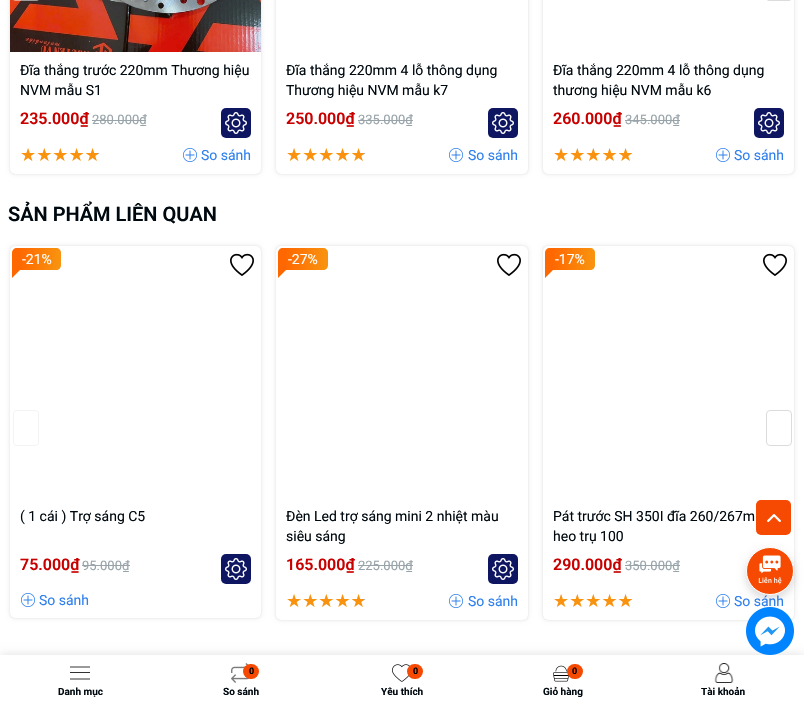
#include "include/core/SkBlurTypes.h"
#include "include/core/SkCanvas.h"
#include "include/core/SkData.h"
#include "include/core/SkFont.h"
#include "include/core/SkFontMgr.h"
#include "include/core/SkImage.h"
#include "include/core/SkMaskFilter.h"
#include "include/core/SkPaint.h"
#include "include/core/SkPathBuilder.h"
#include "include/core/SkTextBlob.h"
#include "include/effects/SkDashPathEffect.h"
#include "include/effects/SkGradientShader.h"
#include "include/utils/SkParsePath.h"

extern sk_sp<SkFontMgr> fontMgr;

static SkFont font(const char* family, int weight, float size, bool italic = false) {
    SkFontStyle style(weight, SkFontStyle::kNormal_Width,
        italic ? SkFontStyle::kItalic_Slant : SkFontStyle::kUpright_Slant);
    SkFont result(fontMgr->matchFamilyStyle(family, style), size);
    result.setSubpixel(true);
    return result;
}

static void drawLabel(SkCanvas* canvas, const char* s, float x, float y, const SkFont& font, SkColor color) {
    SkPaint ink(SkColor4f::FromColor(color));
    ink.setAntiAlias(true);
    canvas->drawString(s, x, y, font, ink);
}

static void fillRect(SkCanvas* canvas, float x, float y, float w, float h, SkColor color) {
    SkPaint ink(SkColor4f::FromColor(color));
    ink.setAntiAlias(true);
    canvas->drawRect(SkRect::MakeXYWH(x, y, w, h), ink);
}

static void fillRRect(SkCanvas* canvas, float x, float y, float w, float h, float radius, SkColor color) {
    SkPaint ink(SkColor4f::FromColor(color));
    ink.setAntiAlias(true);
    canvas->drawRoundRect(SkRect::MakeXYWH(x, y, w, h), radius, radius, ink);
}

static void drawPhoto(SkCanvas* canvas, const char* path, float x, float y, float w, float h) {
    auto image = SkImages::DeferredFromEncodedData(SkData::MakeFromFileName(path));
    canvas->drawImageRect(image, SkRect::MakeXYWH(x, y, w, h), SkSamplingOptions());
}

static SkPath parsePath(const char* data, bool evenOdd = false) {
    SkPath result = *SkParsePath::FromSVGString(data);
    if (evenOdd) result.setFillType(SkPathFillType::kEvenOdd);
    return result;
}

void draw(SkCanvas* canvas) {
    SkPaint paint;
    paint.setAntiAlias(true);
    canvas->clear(0xFFFFFFFF);
    paint.setColor(0x1A000000);
    paint.setMaskFilter(SkMaskFilter::MakeBlur(kNormal_SkBlurStyle, 0.5f));
    canvas->drawRoundRect(SkRect::MakeXYWH(10, -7, 251, 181), 5, 5, paint);
    paint.setMaskFilter(nullptr);
    paint.setMaskFilter(SkMaskFilter::MakeBlur(kNormal_SkBlurStyle, 2));
    canvas->drawRoundRect(SkRect::MakeXYWH(10, -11, 251, 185), 5, 5, paint);
    paint.setMaskFilter(nullptr);
    fillRRect(canvas, 10, -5, 251, 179, 5, 0xFFFFFFFF);
    drawPhoto(canvas, "assets/img1.png", 10, 0, 251, 52);
    fillRRect(canvas, 13, -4, 26, 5, 4, 0x59FFFFFF);
    paint.setStroke(true);
    paint.setStrokeWidth(1);
    paint.setColor(0x59DDDCDC);
    canvas->drawRoundRect(SkRect::MakeXYWH(13.5f, -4.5f, 25, 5), 3.5f, 3.5f, paint);
    paint.setStroke(false);
    paint.setColor(0x1A000000);
    paint.setMaskFilter(SkMaskFilter::MakeBlur(kNormal_SkBlurStyle, 0.5f));
    canvas->drawRoundRect(SkRect::MakeXYWH(543, -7, 251, 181), 5, 5, paint);
    paint.setMaskFilter(nullptr);
    paint.setMaskFilter(SkMaskFilter::MakeBlur(kNormal_SkBlurStyle, 2));
    canvas->drawRoundRect(SkRect::MakeXYWH(543, -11, 251, 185), 5, 5, paint);
    paint.setMaskFilter(nullptr);
    fillRRect(canvas, 543, -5, 251, 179, 5, 0xFFFFFFFF);
    paint.setStroke(true);
    paint.setColor(0xFFDDDCDC);
    canvas->drawRoundRect(SkRect::MakeXYWH(766.5f, -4.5f, 25, 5), 3.5f, 3.5f, paint);
    SkFont font1 = font("Roboto", 400, 14);
    drawLabel(canvas, "Đĩa thắng trước 220mm Thương hiệu", 20, 75, font1, 0xFF00090F);
    drawLabel(canvas, "NVM mẫu S1", 20, 95, font1, 0xFF00090F);
    SkFont font2 = font("Roboto", 600, 16);
    drawLabel(canvas, "235.000₫", 20, 124, font2, 0xFFC90000);
    SkFont font3 = font("Roboto", 400, 13);
    drawLabel(canvas, "280.000₫", 92, 124, font3, 0xFF98A4A9);
    fillRect(canvas, 92, 120, 54, 1, 0xFF98A4A9);
    fillRRect(canvas, 221, 108, 30, 30, 5, 0xFF0E1661);
    drawPhoto(canvas, "assets/img2.png", 225, 112, 22, 22);
    SkFont font4 = font("DejaVu Sans", 400, 18);
    paint.setStroke(false);
    {
        const SkColor colors[] = {0xFFF9920F, 0xFF999999};
        const float stops[] = {0.96f, 0.96f};
        const SkPoint ends[] = {{20, 155}, {100, 155}};
        paint.setShader(SkGradientShader::MakeLinear(ends, colors, stops, 2, SkTileMode::kClamp));
        paint.setAlpha(255);
    }
    canvas->drawString("★★★★★", 20, 161, font4, paint);
    drawPhoto(canvas, "assets/img3.png", 183, 148, 14, 14);
    drawLabel(canvas, "So sánh", 201, 160, font1, 0xFF2F80ED);
    paint.setShader(nullptr);
    paint.setColor(0x1A000000);
    paint.setMaskFilter(SkMaskFilter::MakeBlur(kNormal_SkBlurStyle, 0.5f));
    canvas->drawRoundRect(SkRect::MakeXYWH(276, -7, 252, 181), 5, 5, paint);
    paint.setMaskFilter(nullptr);
    paint.setMaskFilter(SkMaskFilter::MakeBlur(kNormal_SkBlurStyle, 2));
    canvas->drawRoundRect(SkRect::MakeXYWH(276, -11, 252, 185), 5, 5, paint);
    paint.setMaskFilter(nullptr);
    fillRRect(canvas, 276, -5, 252, 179, 5, 0xFFFFFFFF);
    drawLabel(canvas, "Đĩa thắng 220mm 4 lỗ thông dụng", 286, 75, font1, 0xFF00090F);
    drawLabel(canvas, "Thương hiệu NVM mẫu k7", 286, 95, font1, 0xFF00090F);
    drawLabel(canvas, "250.000₫", 286, 124, font2, 0xFFC90000);
    drawLabel(canvas, "335.000₫", 358, 124, font3, 0xFF98A4A9);
    fillRect(canvas, 358, 120, 55, 1, 0xFF98A4A9);
    fillRRect(canvas, 488, 108, 30, 30, 5, 0xFF0E1661);
    drawPhoto(canvas, "assets/img2.png", 492, 112, 22, 22);
    {
        const SkColor colors[] = {0xFFF9920F, 0xFF999999};
        const float stops[] = {0.96f, 0.96f};
        const SkPoint ends[] = {{286, 155}, {367, 155}};
        paint.setShader(SkGradientShader::MakeLinear(ends, colors, stops, 2, SkTileMode::kClamp));
        paint.setAlpha(255);
    }
    canvas->drawString("★★★★★", 286, 161, font4, paint);
    drawPhoto(canvas, "assets/img3.png", 449, 148, 14, 14);
    drawLabel(canvas, "So sánh", 468, 160, font1, 0xFF2F80ED);
    drawLabel(canvas, "Đĩa thắng 220mm 4 lỗ thông dụng", 553, 75, font1, 0xFF00090F);
    drawLabel(canvas, "thương hiệu NVM mẫu k6", 553, 95, font1, 0xFF00090F);
    drawLabel(canvas, "260.000₫", 553, 124, font2, 0xFFC90000);
    drawLabel(canvas, "345.000₫", 625, 124, font3, 0xFF98A4A9);
    fillRect(canvas, 625, 120, 55, 1, 0xFF98A4A9);
    fillRRect(canvas, 754, 108, 30, 30, 5, 0xFF0E1661);
    drawPhoto(canvas, "assets/img2.png", 758, 112, 22, 22);
    {
        const SkColor colors[] = {0xFFF9920F, 0xFF999999};
        const float stops[] = {0.96f, 0.96f};
        const SkPoint ends[] = {{553, 155}, {634, 155}};
        paint.setShader(SkGradientShader::MakeLinear(ends, colors, stops, 2, SkTileMode::kClamp));
        paint.setAlpha(255);
    }
    canvas->drawString("★★★★★", 553, 161, font4, paint);
    drawPhoto(canvas, "assets/img3.png", 716, 148, 14, 14);
    drawLabel(canvas, "So sánh", 734, 160, font1, 0xFF2F80ED);
    SkFont font5 = font("Roboto", 600, 20);
    drawLabel(canvas, "SẢN PHẨM LIÊN QUAN", 8, 221, font5, 0xFF00090F);
    paint.setShader(nullptr);
    paint.setColor(0x1A000000);
    paint.setMaskFilter(SkMaskFilter::MakeBlur(kNormal_SkBlurStyle, 0.5f));
    canvas->drawRoundRect(SkRect::MakeXYWH(10, 246, 251, 372), 5, 5, paint);
    paint.setMaskFilter(nullptr);
    paint.setMaskFilter(SkMaskFilter::MakeBlur(kNormal_SkBlurStyle, 2));
    canvas->drawRoundRect(SkRect::MakeXYWH(10, 246, 251, 372), 5, 5, paint);
    paint.setMaskFilter(nullptr);
    fillRRect(canvas, 10, 246, 251, 372, 5, 0xFFFFFFFF);
    {
        const SkColor colors[] = {0xFFFF6700, 0xFFF9920F};
        const float stops[] = {0.15f, 0.93f};
        const SkPoint ends[] = {{11, 258}, {62, 260}};
        paint.setShader(SkGradientShader::MakeLinear(ends, colors, stops, 2, SkTileMode::kClamp));
        paint.setAlpha(255);
    }
    canvas->drawPath(parsePath("M17 248H56C59 248 61 250 61 253V265C61 268 59 270 56 270H12V253C12 250 14 248 17 248Z"), paint);
    drawLabel(canvas, "-21%", 22, 264, font1, 0xFFFFFFFF);
    paint.setShader(nullptr);
    paint.setColor(0xFFFF6700);
    canvas->drawPath(parsePath("M12 268H22L12 278Z"), paint);
    drawPhoto(canvas, "assets/img4.png", 230, 253, 24, 23);
    drawLabel(canvas, "( 1 cái ) Trợ sáng C5", 20, 521, font1, 0xFF00090F);
    drawLabel(canvas, "75.000₫", 20, 570, font2, 0xFFC90000);
    drawLabel(canvas, "95.000₫", 82, 570, font3, 0xFF98A4A9);
    fillRect(canvas, 82, 565, 48, 1, 0xFF98A4A9);
    fillRRect(canvas, 221, 554, 30, 30, 5, 0xFF0E1661);
    drawPhoto(canvas, "assets/img2.png", 225, 558, 22, 22);
    drawPhoto(canvas, "assets/img3.png", 21, 593, 14, 14);
    drawLabel(canvas, "So sánh", 39, 605, font1, 0xFF2F80ED);
    paint.setColor(0x1A000000);
    paint.setMaskFilter(SkMaskFilter::MakeBlur(kNormal_SkBlurStyle, 0.5f));
    canvas->drawRoundRect(SkRect::MakeXYWH(276, 246, 252, 374), 5, 5, paint);
    paint.setMaskFilter(nullptr);
    paint.setMaskFilter(SkMaskFilter::MakeBlur(kNormal_SkBlurStyle, 2));
    canvas->drawRoundRect(SkRect::MakeXYWH(276, 246, 252, 374), 5, 5, paint);
    paint.setMaskFilter(nullptr);
    fillRRect(canvas, 276, 246, 252, 374, 5, 0xFFFFFFFF);
    {
        const SkColor colors[] = {0xFFFF6700, 0xFFF9920F};
        const float stops[] = {0.15f, 0.93f};
        const SkPoint ends[] = {{277, 258}, {329, 260}};
        paint.setShader(SkGradientShader::MakeLinear(ends, colors, stops, 2, SkTileMode::kClamp));
        paint.setAlpha(255);
    }
    canvas->drawPath(parsePath("M283 248H323C326 248 328 250 328 253V265C328 268 326 270 323 270H278V253C278 250 280 248 283 248Z"), paint);
    drawLabel(canvas, "-27%", 288, 264, font1, 0xFFFFFFFF);
    paint.setShader(nullptr);
    paint.setColor(0xFFFF6700);
    canvas->drawPath(parsePath("M278 268H288L278 278Z"), paint);
    drawPhoto(canvas, "assets/img4.png", 497, 253, 24, 23);
    drawLabel(canvas, "Đèn Led trợ sáng mini 2 nhiệt màu", 286, 521, font1, 0xFF00090F);
    drawLabel(canvas, "siêu sáng", 286, 541, font1, 0xFF00090F);
    drawLabel(canvas, "165.000₫", 286, 570, font2, 0xFFC90000);
    drawLabel(canvas, "225.000₫", 358, 570, font3, 0xFF98A4A9);
    fillRect(canvas, 358, 565, 55, 1, 0xFF98A4A9);
    fillRRect(canvas, 488, 554, 30, 30, 5, 0xFF0E1661);
    drawPhoto(canvas, "assets/img2.png", 492, 558, 22, 22);
    {
        const SkColor colors[] = {0xFFF9920F, 0xFF999999};
        const float stops[] = {0.96f, 0.96f};
        const SkPoint ends[] = {{286, 601}, {367, 601}};
        paint.setShader(SkGradientShader::MakeLinear(ends, colors, stops, 2, SkTileMode::kClamp));
        paint.setAlpha(255);
    }
    canvas->drawString("★★★★★", 286, 607, font4, paint);
    drawPhoto(canvas, "assets/img3.png", 449, 594, 14, 14);
    drawLabel(canvas, "So sánh", 468, 606, font1, 0xFF2F80ED);
    paint.setShader(nullptr);
    paint.setColor(0x1A000000);
    paint.setMaskFilter(SkMaskFilter::MakeBlur(kNormal_SkBlurStyle, 0.5f));
    canvas->drawRoundRect(SkRect::MakeXYWH(543, 246, 251, 374), 5, 5, paint);
    paint.setMaskFilter(nullptr);
    paint.setMaskFilter(SkMaskFilter::MakeBlur(kNormal_SkBlurStyle, 2));
    canvas->drawRoundRect(SkRect::MakeXYWH(543, 246, 251, 374), 5, 5, paint);
    paint.setMaskFilter(nullptr);
    fillRRect(canvas, 543, 246, 251, 374, 5, 0xFFFFFFFF);
    {
        const SkColor colors[] = {0xFFFF6700, 0xFFF9920F};
        const float stops[] = {0.15f, 0.93f};
        const SkPoint ends[] = {{544, 258}, {596, 260}};
        paint.setShader(SkGradientShader::MakeLinear(ends, colors, stops, 2, SkTileMode::kClamp));
        paint.setAlpha(255);
    }
    canvas->drawPath(parsePath("M550 248H590C593 248 595 250 595 253V265C595 268 593 270 590 270H545V253C545 250 547 248 550 248Z"), paint);
    drawLabel(canvas, "-17%", 555, 264, font1, 0xFFFFFFFF);
    paint.setShader(nullptr);
    paint.setColor(0xFFFF6700);
    canvas->drawPath(parsePath("M545 268H555L545 278Z"), paint);
    drawPhoto(canvas, "assets/img4.png", 763, 253, 24, 23);
    drawLabel(canvas, "Pát trước SH 350I đĩa 260/267m", 553, 521, font1, 0xFF00090F);
    drawLabel(canvas, "heo trụ 100", 553, 541, font1, 0xFF00090F);
    drawLabel(canvas, "290.000₫", 553, 570, font2, 0xFFC90000);
    drawLabel(canvas, "350.000₫", 625, 570, font3, 0xFF98A4A9);
    fillRect(canvas, 625, 565, 55, 1, 0xFF98A4A9);
    {
        const SkColor colors[] = {0xFFF9920F, 0xFF999999};
        const float stops[] = {0.96f, 0.96f};
        const SkPoint ends[] = {{553, 601}, {634, 601}};
        paint.setShader(SkGradientShader::MakeLinear(ends, colors, stops, 2, SkTileMode::kClamp));
        paint.setAlpha(255);
    }
    canvas->drawString("★★★★★", 553, 607, font4, paint);
    drawPhoto(canvas, "assets/img3.png", 716, 594, 14, 14);
    drawLabel(canvas, "So sánh", 734, 606, font1, 0xFF2F80ED);
    paint.setStroke(true);
    paint.setShader(nullptr);
    paint.setColor(0xFFF3F3F3);
    canvas->drawRoundRect(SkRect::MakeXYWH(13.5f, 410.5f, 25, 35), 3.5f, 3.5f, paint);
    paint.setColor(0xFFDDDCDC);
    canvas->drawRoundRect(SkRect::MakeXYWH(766.5f, 410.5f, 25, 35), 3.5f, 3.5f, paint);
    fillRRect(canvas, 756, 500, 35, 35, 5, 0xFFF64A02);
    drawPhoto(canvas, "assets/img5.png", 767, 514, 14, 9);
    paint.setStroke(false);
    paint.setColor(0x1F000000);
    paint.setMaskFilter(SkMaskFilter::MakeBlur(kNormal_SkBlurStyle, 4.5f));
    canvas->drawRect(SkRect::MakeXYWH(0, 655, 804, 50), paint);
    paint.setMaskFilter(nullptr);
    fillRect(canvas, 0, 655, 804, 50, 0xFFFFFFFF);
    paint.setStroke(true);
    paint.setStrokeWidth(0.8f);
    paint.setColor(0xFF000000);
    canvas->drawPath(parsePath("M70 667H90"), paint);
    fillRect(canvas, 70, 672, 20, 1, 0xFF333333);
    canvas->drawPath(parsePath("M70 679H90"), paint);
    SkFont font6 = font("Roboto", 700, 10);
    drawLabel(canvas, "Danh mục", 58, 695, font6, 0xFF00090F);
    drawPhoto(canvas, "assets/img6.png", 231, 663, 19, 20);
    fillRRect(canvas, 243, 664, 16, 15, 7.5f, 0xFFF64A02);
    SkFont font7 = font("Roboto", 700, 9);
    drawLabel(canvas, "0", 249, 674, font7, 0xFF000000);
    drawLabel(canvas, "So sánh", 223, 695, font6, 0xFF00090F);
    drawPhoto(canvas, "assets/img7.png", 392, 664, 18, 18);
    fillRRect(canvas, 407, 664, 16, 15, 7.5f, 0xFFF64A02);
    drawLabel(canvas, "0", 413, 674, font7, 0xFF000000);
    drawLabel(canvas, "Yêu thích", 381, 695, font6, 0xFF00090F);
    drawPhoto(canvas, "assets/img8.png", 553, 665, 16, 17);
    fillRRect(canvas, 567, 664, 16, 15, 7.5f, 0xFFF64A02);
    drawLabel(canvas, "0", 572, 674, font7, 0xFF000000);
    drawLabel(canvas, "Giỏ hàng", 543, 695, font6, 0xFF00090F);
    drawPhoto(canvas, "assets/img9.png", 714, 663, 20, 20);
    drawLabel(canvas, "Tài khoản", 701, 695, font6, 0xFF00090F);
    paint.setStroke(false);
    paint.setColor(0x26000000);
    paint.setMaskFilter(SkMaskFilter::MakeBlur(kNormal_SkBlurStyle, 4));
    canvas->drawRoundRect(SkRect::MakeXYWH(746, 551, 48, 48), 24, 24, paint);
    paint.setMaskFilter(nullptr);
    paint.setColor(0xFFF64A02);
    canvas->drawCircle(770, 571, 23.5f, paint);
    paint.setStroke(true);
    paint.setStrokeWidth(1);
    paint.setColor(0xFFFFFFFF);
    canvas->drawCircle(770, 571, 23.5f, paint);
    drawPhoto(canvas, "assets/img10.png", 758, 555, 24, 30);
    drawPhoto(canvas, "assets/img11.png", 746, 607, 48, 48);
}
